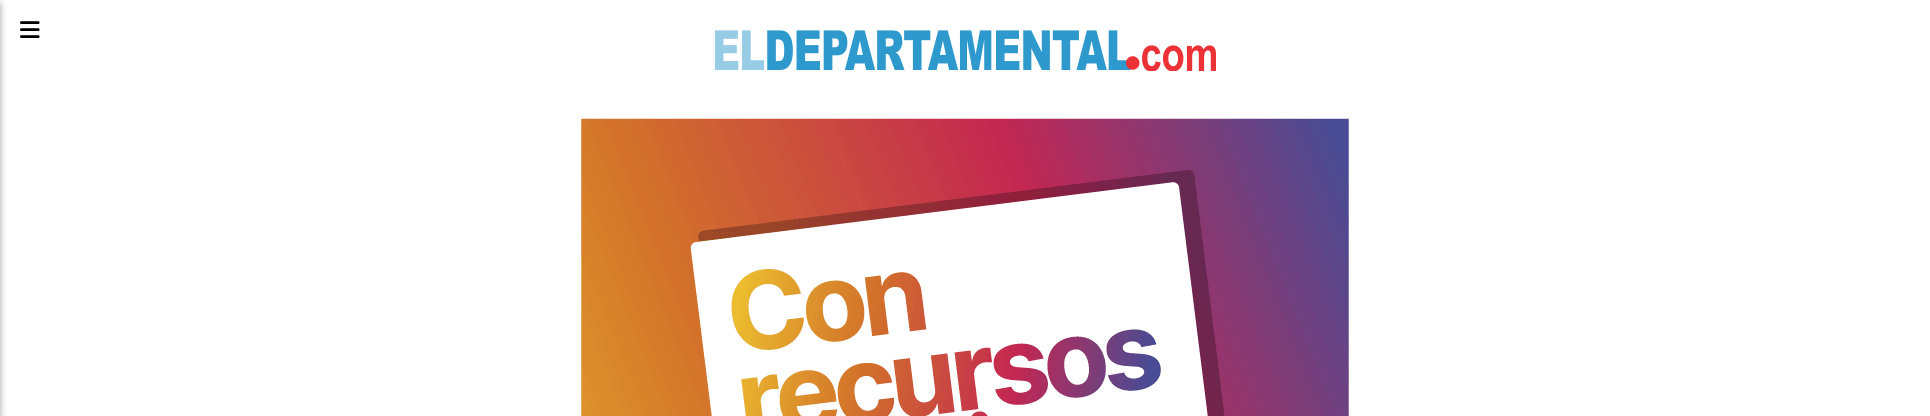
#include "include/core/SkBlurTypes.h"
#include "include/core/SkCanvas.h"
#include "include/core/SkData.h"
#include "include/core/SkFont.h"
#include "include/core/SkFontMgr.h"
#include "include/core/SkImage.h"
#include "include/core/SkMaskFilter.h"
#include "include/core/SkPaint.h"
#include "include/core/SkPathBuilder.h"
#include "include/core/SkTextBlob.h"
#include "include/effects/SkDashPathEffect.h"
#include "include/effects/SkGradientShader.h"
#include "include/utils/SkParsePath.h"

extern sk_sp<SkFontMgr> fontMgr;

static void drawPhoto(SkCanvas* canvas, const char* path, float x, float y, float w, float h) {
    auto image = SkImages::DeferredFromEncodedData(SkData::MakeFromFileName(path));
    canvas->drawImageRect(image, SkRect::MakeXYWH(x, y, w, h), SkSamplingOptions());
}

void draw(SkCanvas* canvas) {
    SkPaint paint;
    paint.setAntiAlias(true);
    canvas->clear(0xFFFFFFFF);
    paint.setColor(0x3B000000);
    paint.setMaskFilter(SkMaskFilter::MakeBlur(kNormal_SkBlurStyle, 3));
    canvas->drawRect(SkRect::MakeXYWH(-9, 3, 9, 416), paint);
    paint.setMaskFilter(nullptr);
    paint.setColor(0x29000000);
    paint.setMaskFilter(SkMaskFilter::MakeBlur(kNormal_SkBlurStyle, 3));
    canvas->drawRect(SkRect::MakeXYWH(-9, 3, 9, 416), paint);
    paint.setMaskFilter(nullptr);
    drawPhoto(canvas, "assets/img1.png", 20, 21, 20, 17);
    drawPhoto(canvas, "assets/img2.png", 715, 30, 501, 41);
    drawPhoto(canvas, "assets/img3.png", 581, 118, 768, 298);
}
